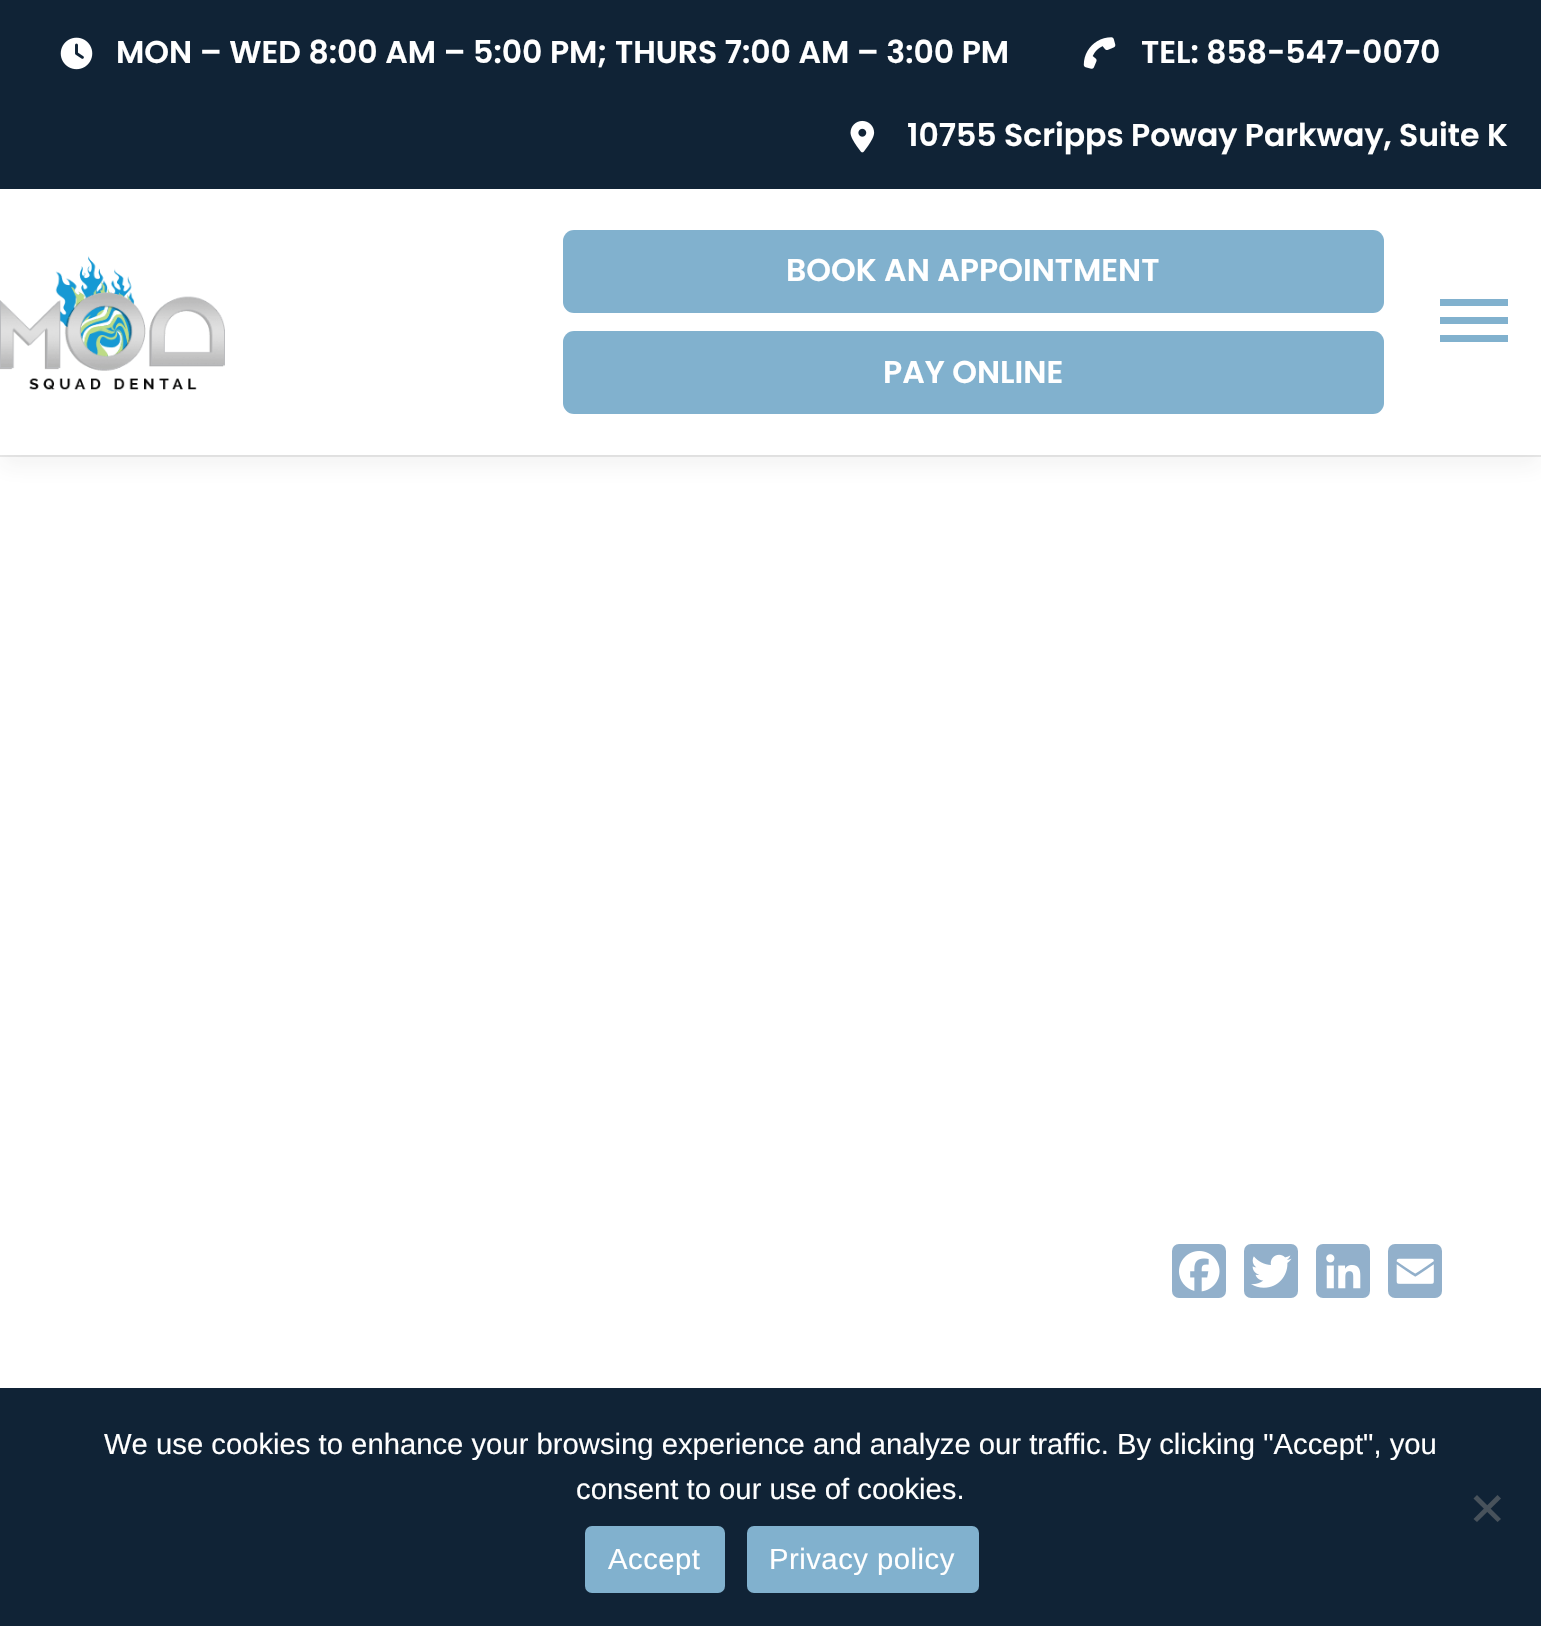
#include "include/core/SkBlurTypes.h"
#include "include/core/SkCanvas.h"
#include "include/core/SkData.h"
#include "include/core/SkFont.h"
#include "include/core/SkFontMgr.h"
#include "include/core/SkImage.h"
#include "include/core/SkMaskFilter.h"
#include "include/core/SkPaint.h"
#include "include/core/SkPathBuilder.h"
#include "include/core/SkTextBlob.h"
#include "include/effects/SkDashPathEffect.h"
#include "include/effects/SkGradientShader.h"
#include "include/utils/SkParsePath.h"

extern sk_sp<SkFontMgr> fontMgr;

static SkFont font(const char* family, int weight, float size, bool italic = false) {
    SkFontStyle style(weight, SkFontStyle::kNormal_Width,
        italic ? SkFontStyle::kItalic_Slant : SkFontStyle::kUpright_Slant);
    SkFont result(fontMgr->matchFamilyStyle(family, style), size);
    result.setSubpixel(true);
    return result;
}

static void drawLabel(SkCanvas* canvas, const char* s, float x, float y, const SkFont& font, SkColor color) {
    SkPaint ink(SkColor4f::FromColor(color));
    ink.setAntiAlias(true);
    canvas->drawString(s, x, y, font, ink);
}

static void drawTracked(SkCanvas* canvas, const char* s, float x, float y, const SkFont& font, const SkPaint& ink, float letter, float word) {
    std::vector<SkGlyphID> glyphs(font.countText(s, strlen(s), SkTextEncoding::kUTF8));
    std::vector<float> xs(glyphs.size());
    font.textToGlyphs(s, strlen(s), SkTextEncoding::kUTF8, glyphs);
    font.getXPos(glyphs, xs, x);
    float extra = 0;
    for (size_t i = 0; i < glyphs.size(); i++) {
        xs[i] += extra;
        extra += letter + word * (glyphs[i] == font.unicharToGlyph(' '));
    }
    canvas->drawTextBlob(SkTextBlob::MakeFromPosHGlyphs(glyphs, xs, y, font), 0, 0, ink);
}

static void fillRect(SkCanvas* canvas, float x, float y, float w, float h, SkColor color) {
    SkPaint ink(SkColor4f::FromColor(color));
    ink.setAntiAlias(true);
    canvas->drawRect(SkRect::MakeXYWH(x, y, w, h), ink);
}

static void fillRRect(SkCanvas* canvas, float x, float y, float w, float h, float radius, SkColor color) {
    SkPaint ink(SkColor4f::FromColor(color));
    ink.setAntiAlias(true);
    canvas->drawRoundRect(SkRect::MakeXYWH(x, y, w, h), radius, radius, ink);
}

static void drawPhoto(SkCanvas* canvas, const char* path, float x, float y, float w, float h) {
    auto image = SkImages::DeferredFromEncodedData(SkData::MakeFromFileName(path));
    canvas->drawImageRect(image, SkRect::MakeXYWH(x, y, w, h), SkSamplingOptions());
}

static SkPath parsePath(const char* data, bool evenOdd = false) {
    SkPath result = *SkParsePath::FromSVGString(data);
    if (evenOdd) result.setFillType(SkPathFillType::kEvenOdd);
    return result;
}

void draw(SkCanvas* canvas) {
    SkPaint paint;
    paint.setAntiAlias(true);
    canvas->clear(0xFFFFFFFF);
    fillRect(canvas, 0, 455, 1541, 2, 0xFFE9E9E9);
    paint.setColor(0x0F323232);
    paint.setMaskFilter(SkMaskFilter::MakeBlur(kNormal_SkBlurStyle, 11));
    canvas->drawRect(SkRect::MakeXYWH(0, 11, 1541, 455), paint);
    paint.setMaskFilter(nullptr);
    fillRect(canvas, 0, 189, 1541, 266, 0xFFFFFFFF);
    fillRect(canvas, 0, 0, 1541, 189, 0xFF102336);
    drawPhoto(canvas, "assets/img1.png", 60, 37, 33, 33);
    SkFont font1 = font("Poppins", 600, 31.5f);
    drawLabel(canvas, "MON – WED 8:00 AM – 5:00 PM; THURS 7:00 AM – 3:00 PM", 116, 63, font1, 0xFFFFFFFF);
    drawPhoto(canvas, "assets/img2.png", 1083, 37, 33, 32);
    drawLabel(canvas, "TEL: 858-547-0070", 1141, 63, font1, 0xFFFFFFFF);
    drawPhoto(canvas, "assets/img3.png", 850, 120, 25, 33);
    drawLabel(canvas, "10755 Scripps Poway Parkway, Suite K", 907, 146, font1, 0xFFFFFFFF);
    drawPhoto(canvas, "assets/img4.png", 0, 256, 225, 134);
    fillRRect(canvas, 563, 230, 821, 83, 11, 0xFF81B1CE);
    drawLabel(canvas, "BOOK AN APPOINTMENT", 786, 281, font1, 0xFFFFFFFF);
    fillRRect(canvas, 563, 331, 821, 83, 11, 0xFF81B1CE);
    drawLabel(canvas, "PAY ONLINE", 883, 383, font1, 0xFFFFFFFF);
    fillRect(canvas, 1440, 317, 68, 7, 0xFF81B1CE);
    fillRect(canvas, 1440, 299, 68, 7, 0xFF81B1CE);
    fillRect(canvas, 1440, 335, 68, 7, 0xFF81B1CE);
    fillRRect(canvas, 1172, 1244, 54, 54, 7, 0xFF92B0CB);
    drawPhoto(canvas, "assets/img5.png", 1179, 1251, 41, 41);
    fillRRect(canvas, 1244, 1244, 54, 54, 7, 0xFF92B0CB);
    drawPhoto(canvas, "assets/img6.png", 1251, 1254, 41, 34);
    fillRRect(canvas, 1316, 1244, 54, 54, 7, 0xFF92B0CB);
    drawPhoto(canvas, "assets/img7.png", 1326, 1254, 35, 35);
    fillRRect(canvas, 1388, 1244, 54, 54, 7, 0xFF92B0CB);
    drawPhoto(canvas, "assets/img8.png", 1396, 1258, 38, 26);
    fillRect(canvas, 0, 1388, 1541, 238, 0xFF102336);
    SkFont font2 = font("Liberation Sans", 400, 29.25f);
    drawLabel(canvas, "We use cookies to enhance your browsing experience and analyze our traffic. By clicking \"Accept\", you", 104, 1454, font2, 0xFFFFFFFF);
    drawLabel(canvas, "consent to our use of cookies.", 576, 1499, font2, 0xFFFFFFFF);
    paint.setColor(0xFF48525B);
    canvas->drawPath(parsePath("M1497.5 1495L1501 1498.5L1477 1522L1473.5 1519Z"), paint);
    canvas->drawPath(parsePath("M1473.5 1498.5L1477 1495L1501 1519L1497.5 1522Z"), paint);
    fillRRect(canvas, 585, 1526, 140, 67, 7, 0xFF81B1CE);
    paint.setColor(0xFFFFFFFF);
    drawTracked(canvas, "Accept", 608, 1569, font2, paint, 0.5f, 0);
    fillRRect(canvas, 747, 1526, 232, 67, 7, 0xFF81B1CE);
    drawTracked(canvas, "Privacy policy", 769, 1569, font2, paint, 0.5f, 0);
}
